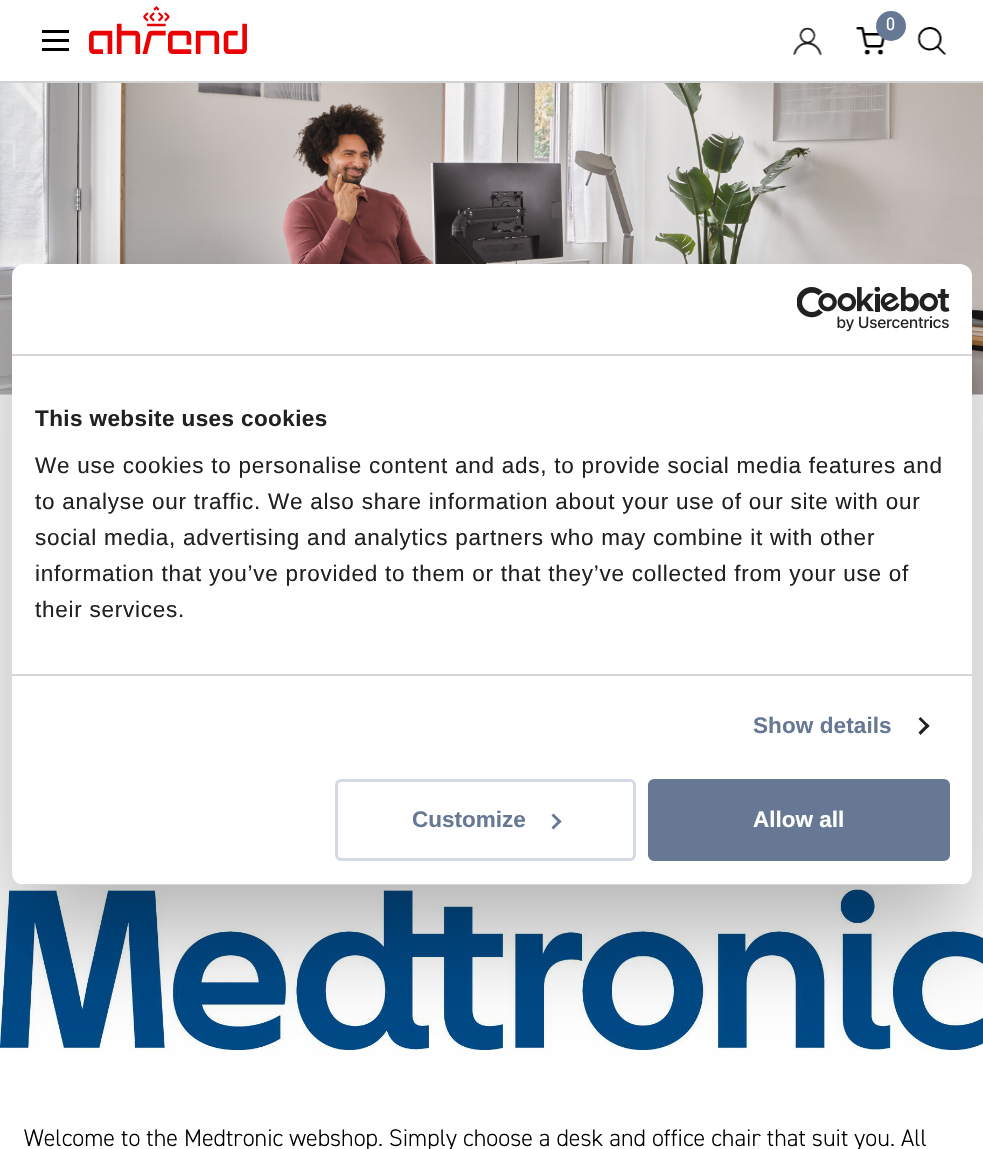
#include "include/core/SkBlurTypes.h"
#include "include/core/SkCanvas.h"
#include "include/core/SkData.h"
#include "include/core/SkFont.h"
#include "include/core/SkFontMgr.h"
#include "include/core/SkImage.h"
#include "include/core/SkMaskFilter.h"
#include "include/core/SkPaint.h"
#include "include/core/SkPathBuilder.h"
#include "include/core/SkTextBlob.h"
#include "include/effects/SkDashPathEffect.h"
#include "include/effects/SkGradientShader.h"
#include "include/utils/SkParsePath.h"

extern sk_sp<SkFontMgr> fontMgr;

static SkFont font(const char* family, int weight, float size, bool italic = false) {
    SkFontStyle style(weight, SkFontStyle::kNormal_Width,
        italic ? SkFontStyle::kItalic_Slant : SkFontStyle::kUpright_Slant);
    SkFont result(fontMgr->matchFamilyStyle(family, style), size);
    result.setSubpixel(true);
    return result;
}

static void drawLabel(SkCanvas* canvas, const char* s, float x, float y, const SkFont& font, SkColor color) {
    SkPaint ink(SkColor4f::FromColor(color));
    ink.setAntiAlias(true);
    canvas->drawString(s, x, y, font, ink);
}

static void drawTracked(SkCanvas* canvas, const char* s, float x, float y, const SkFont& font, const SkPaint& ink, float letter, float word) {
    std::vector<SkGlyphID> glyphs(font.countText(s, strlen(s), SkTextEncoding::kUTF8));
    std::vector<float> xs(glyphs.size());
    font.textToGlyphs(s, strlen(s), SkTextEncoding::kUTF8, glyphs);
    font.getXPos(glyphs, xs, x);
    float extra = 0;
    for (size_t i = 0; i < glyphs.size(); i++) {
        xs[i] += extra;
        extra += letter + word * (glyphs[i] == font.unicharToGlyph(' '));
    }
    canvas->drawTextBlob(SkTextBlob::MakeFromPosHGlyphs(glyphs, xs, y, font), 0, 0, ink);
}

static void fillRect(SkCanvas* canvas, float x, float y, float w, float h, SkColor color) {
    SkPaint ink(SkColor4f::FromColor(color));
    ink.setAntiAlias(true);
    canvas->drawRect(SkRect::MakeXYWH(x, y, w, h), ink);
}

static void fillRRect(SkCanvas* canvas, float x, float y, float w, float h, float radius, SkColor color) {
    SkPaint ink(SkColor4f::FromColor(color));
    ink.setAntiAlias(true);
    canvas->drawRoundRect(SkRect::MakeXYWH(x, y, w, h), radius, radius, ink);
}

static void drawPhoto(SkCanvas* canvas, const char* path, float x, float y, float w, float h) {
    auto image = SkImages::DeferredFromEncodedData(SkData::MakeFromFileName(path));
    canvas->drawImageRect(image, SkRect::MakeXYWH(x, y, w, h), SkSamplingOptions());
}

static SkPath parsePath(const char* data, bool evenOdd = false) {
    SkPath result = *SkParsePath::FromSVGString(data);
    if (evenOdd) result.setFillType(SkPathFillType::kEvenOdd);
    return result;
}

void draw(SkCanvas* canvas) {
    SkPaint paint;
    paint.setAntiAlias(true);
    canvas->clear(0xFFFFFFFF);
    fillRect(canvas, 0, 81, 983, 2, 0xFFD1D2D3);
    drawPhoto(canvas, "assets/img1.png", 89, 6, 158, 48);
    drawPhoto(canvas, "assets/img2.png", 856, 27, 29, 28);
    paint.setColor(0xFF667894);
    canvas->drawCircle(891, 26, 15, paint);
    SkFont font1 = font("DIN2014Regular", 400, 18);
    drawLabel(canvas, "0", 886, 30, font1, 0xFFFFFFFF);
    drawPhoto(canvas, "assets/img3.png", 793, 27, 29, 29);
    drawPhoto(canvas, "assets/img4.png", 917, 27, 30, 28);
    fillRect(canvas, 42, 30, 27, 3, 0xFF000000);
    fillRect(canvas, 42, 39, 27, 3, 0xFF000000);
    fillRect(canvas, 42, 48, 27, 3, 0xFF000000);
    drawPhoto(canvas, "assets/img5.png", 0, 83, 983, 312);
    drawPhoto(canvas, "assets/img6.png", 0, 889, 983, 161);
    SkFont font2 = font("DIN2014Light", 400, 24);
    drawLabel(canvas, "Welcome to the Medtronic webshop. Simply choose a desk and office chair that suit you. All", 24, 1146, font2, 0xFF000000);
    paint.setColor(0x4D000000);
    paint.setMaskFilter(SkMaskFilter::MakeBlur(kNormal_SkBlurStyle, 51));
    canvas->drawRoundRect(SkRect::MakeXYWH(12, 312, 960, 621), 12, 12, paint);
    paint.setMaskFilter(nullptr);
    fillRRect(canvas, 12, 264, 960, 621, 12, 0xFFFFFFFF);
    fillRect(canvas, 12, 354, 960, 2, 0xFFD6D6D6);
    drawPhoto(canvas, "assets/img7.png", 797, 287, 153, 45);
    fillRect(canvas, 12, 674, 960, 2, 0xFFD6D6D6);
    SkFont font3 = font("Liberation Sans", 700, 22.5f);
    paint.setColor(0xFF212121);
    drawTracked(canvas, "This website uses cookies", 35, 426, font3, paint, 0.4f, 0);
    SkFont font4 = font("Liberation Sans", 400, 22.5f);
    drawTracked(canvas, "We use cookies to personalise content and ads, to provide social media features and", 35, 473, font4, paint, 0.75f, 0);
    drawTracked(canvas, "to analyse our traffic. We also share information about your use of our site with our", 35, 509, font4, paint, 0.75f, 0);
    drawTracked(canvas, "social media, advertising and analytics partners who may combine it with other", 35, 545, font4, paint, 0.75f, 0);
    drawTracked(canvas, "information that you’ve provided to them or that they’ve collected from your use of", 35, 581, font4, paint, 0.75f, 0);
    drawTracked(canvas, "their services.", 35, 617, font4, paint, 0.75f, 0);
    paint.setColor(0xFF667894);
    drawTracked(canvas, "Show details", 753, 733, font3, paint, 0.1f, 0);
    paint.setColor(0xFF212121);
    canvas->drawPath(parsePath("M920.5 717L929.5 726L927.5 728L918.5 719Z"), paint);
    canvas->drawPath(parsePath("M927.5 723.5L929.5 726L920.5 735L918.5 732.5Z"), paint);
    canvas->save();
    canvas->clipPath(parsePath("M24 264H960C966.5 264 972 269.5 972 276V873C972 879.5 966.5 885 960 885H24C17.5 885 12 879.5 12 873V276C12 269.5 17.5 264 24 264Z"), true);
    fillRect(canvas, 12, 884, 960, 1, 0xFFD6D6D6);
    canvas->restore();
    paint.setStroke(true);
    paint.setStrokeWidth(3);
    paint.setColor(0xFFD4DAE3);
    canvas->drawRoundRect(SkRect::MakeXYWH(336.5f, 780.5f, 298, 79), 4.5f, 4.5f, paint);
    drawLabel(canvas, "Customize", 412, 827, font3, 0xFF667894);
    paint.setStroke(false);
    paint.setColor(0xFF667894);
    canvas->drawPath(parsePath("M553.5 813.5L561.5 821.5L559.5 823.5L551.5 815.5Z"), paint);
    canvas->drawPath(parsePath("M559.5 819.5L561.5 821.5L553.5 829.5L551.5 827.5Z"), paint);
    canvas->drawRoundRect(SkRect::MakeXYWH(649.5f, 780.5f, 299, 79), 4.5f, 4.5f, paint);
    paint.setStroke(true);
    canvas->drawRoundRect(SkRect::MakeXYWH(649.5f, 780.5f, 299, 79), 4.5f, 4.5f, paint);
    drawLabel(canvas, "Allow all", 753, 827, font3, 0xFFFFFFFF);
}
